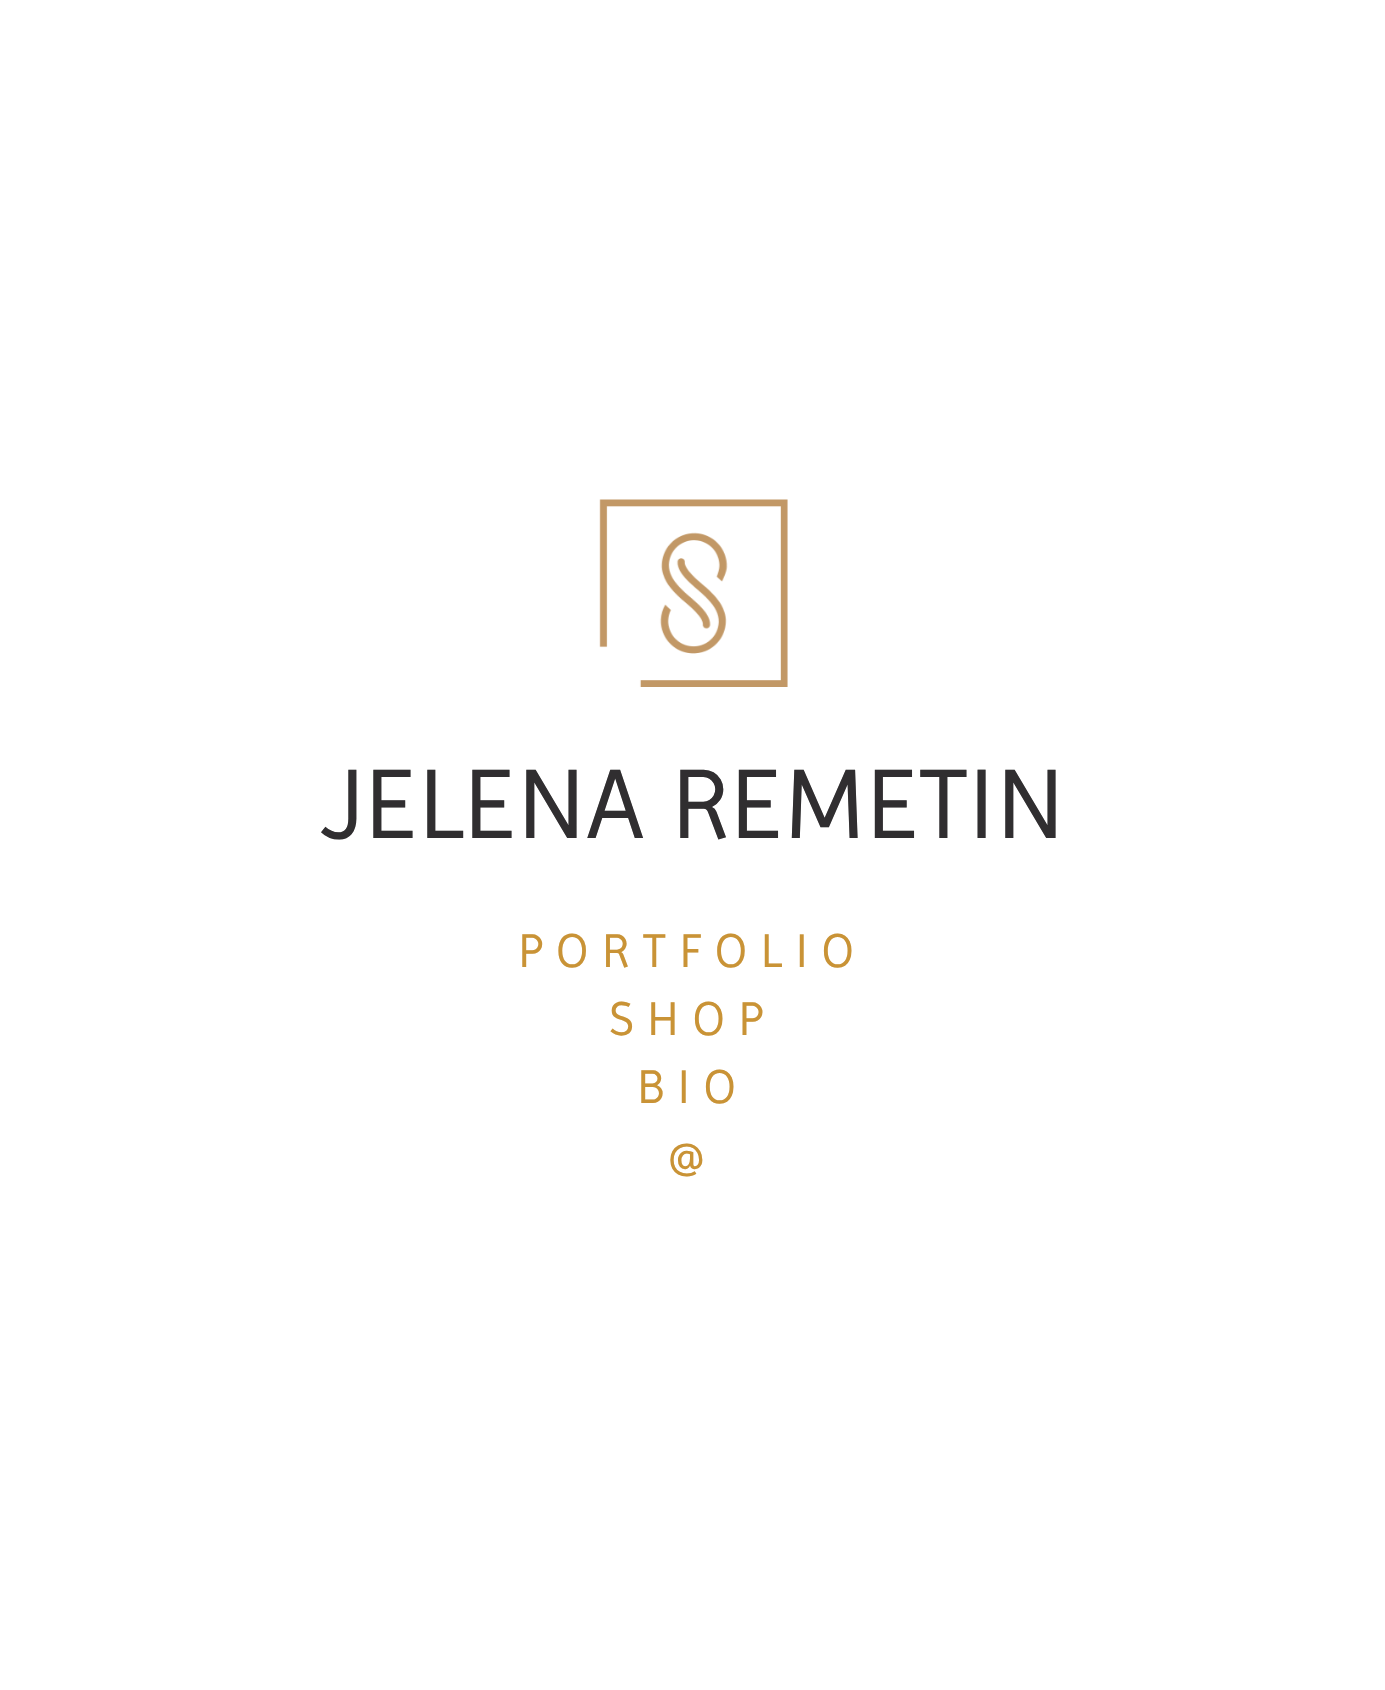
#include "include/core/SkBlurTypes.h"
#include "include/core/SkCanvas.h"
#include "include/core/SkData.h"
#include "include/core/SkFont.h"
#include "include/core/SkFontMgr.h"
#include "include/core/SkImage.h"
#include "include/core/SkMaskFilter.h"
#include "include/core/SkPaint.h"
#include "include/core/SkPathBuilder.h"
#include "include/core/SkTextBlob.h"
#include "include/effects/SkDashPathEffect.h"
#include "include/effects/SkGradientShader.h"
#include "include/utils/SkParsePath.h"

extern sk_sp<SkFontMgr> fontMgr;

static SkFont font(const char* family, int weight, float size, bool italic = false) {
    SkFontStyle style(weight, SkFontStyle::kNormal_Width,
        italic ? SkFontStyle::kItalic_Slant : SkFontStyle::kUpright_Slant);
    SkFont result(fontMgr->matchFamilyStyle(family, style), size);
    result.setSubpixel(true);
    return result;
}

static void drawTracked(SkCanvas* canvas, const char* s, float x, float y, const SkFont& font, const SkPaint& ink, float letter, float word) {
    std::vector<SkGlyphID> glyphs(font.countText(s, strlen(s), SkTextEncoding::kUTF8));
    std::vector<float> xs(glyphs.size());
    font.textToGlyphs(s, strlen(s), SkTextEncoding::kUTF8, glyphs);
    font.getXPos(glyphs, xs, x);
    float extra = 0;
    for (size_t i = 0; i < glyphs.size(); i++) {
        xs[i] += extra;
        extra += letter + word * (glyphs[i] == font.unicharToGlyph(' '));
    }
    canvas->drawTextBlob(SkTextBlob::MakeFromPosHGlyphs(glyphs, xs, y, font), 0, 0, ink);
}

static void drawPhoto(SkCanvas* canvas, const char* path, float x, float y, float w, float h) {
    auto image = SkImages::DeferredFromEncodedData(SkData::MakeFromFileName(path));
    canvas->drawImageRect(image, SkRect::MakeXYWH(x, y, w, h), SkSamplingOptions());
}

void draw(SkCanvas* canvas) {
    SkPaint paint;
    paint.setAntiAlias(true);
    canvas->clear(0xFFFFFFFF);
    drawPhoto(canvas, "assets/img1.png", 599, 499, 189, 188);
    SkFont font1 = font("Imprima", 400, 100.5f);
    paint.setColor(0xFF302E30);
    drawTracked(canvas, "JELENA REMETIN", 321, 838, font1, paint, 1.5f, 0);
    SkFont font2 = font("Imprima", 400, 48);
    paint.setColor(0xFFC99336);
    drawTracked(canvas, "PORTFOLIO", 518, 967, font2, paint, 13.5f, 0);
    drawTracked(canvas, "SHOP", 609, 1035, font2, paint, 13.5f, 0);
    drawTracked(canvas, "BIO", 637, 1103, font2, paint, 13.5f, 0);
    drawTracked(canvas, "@", 667, 1172, font2, paint, 13.5f, 0);
}
